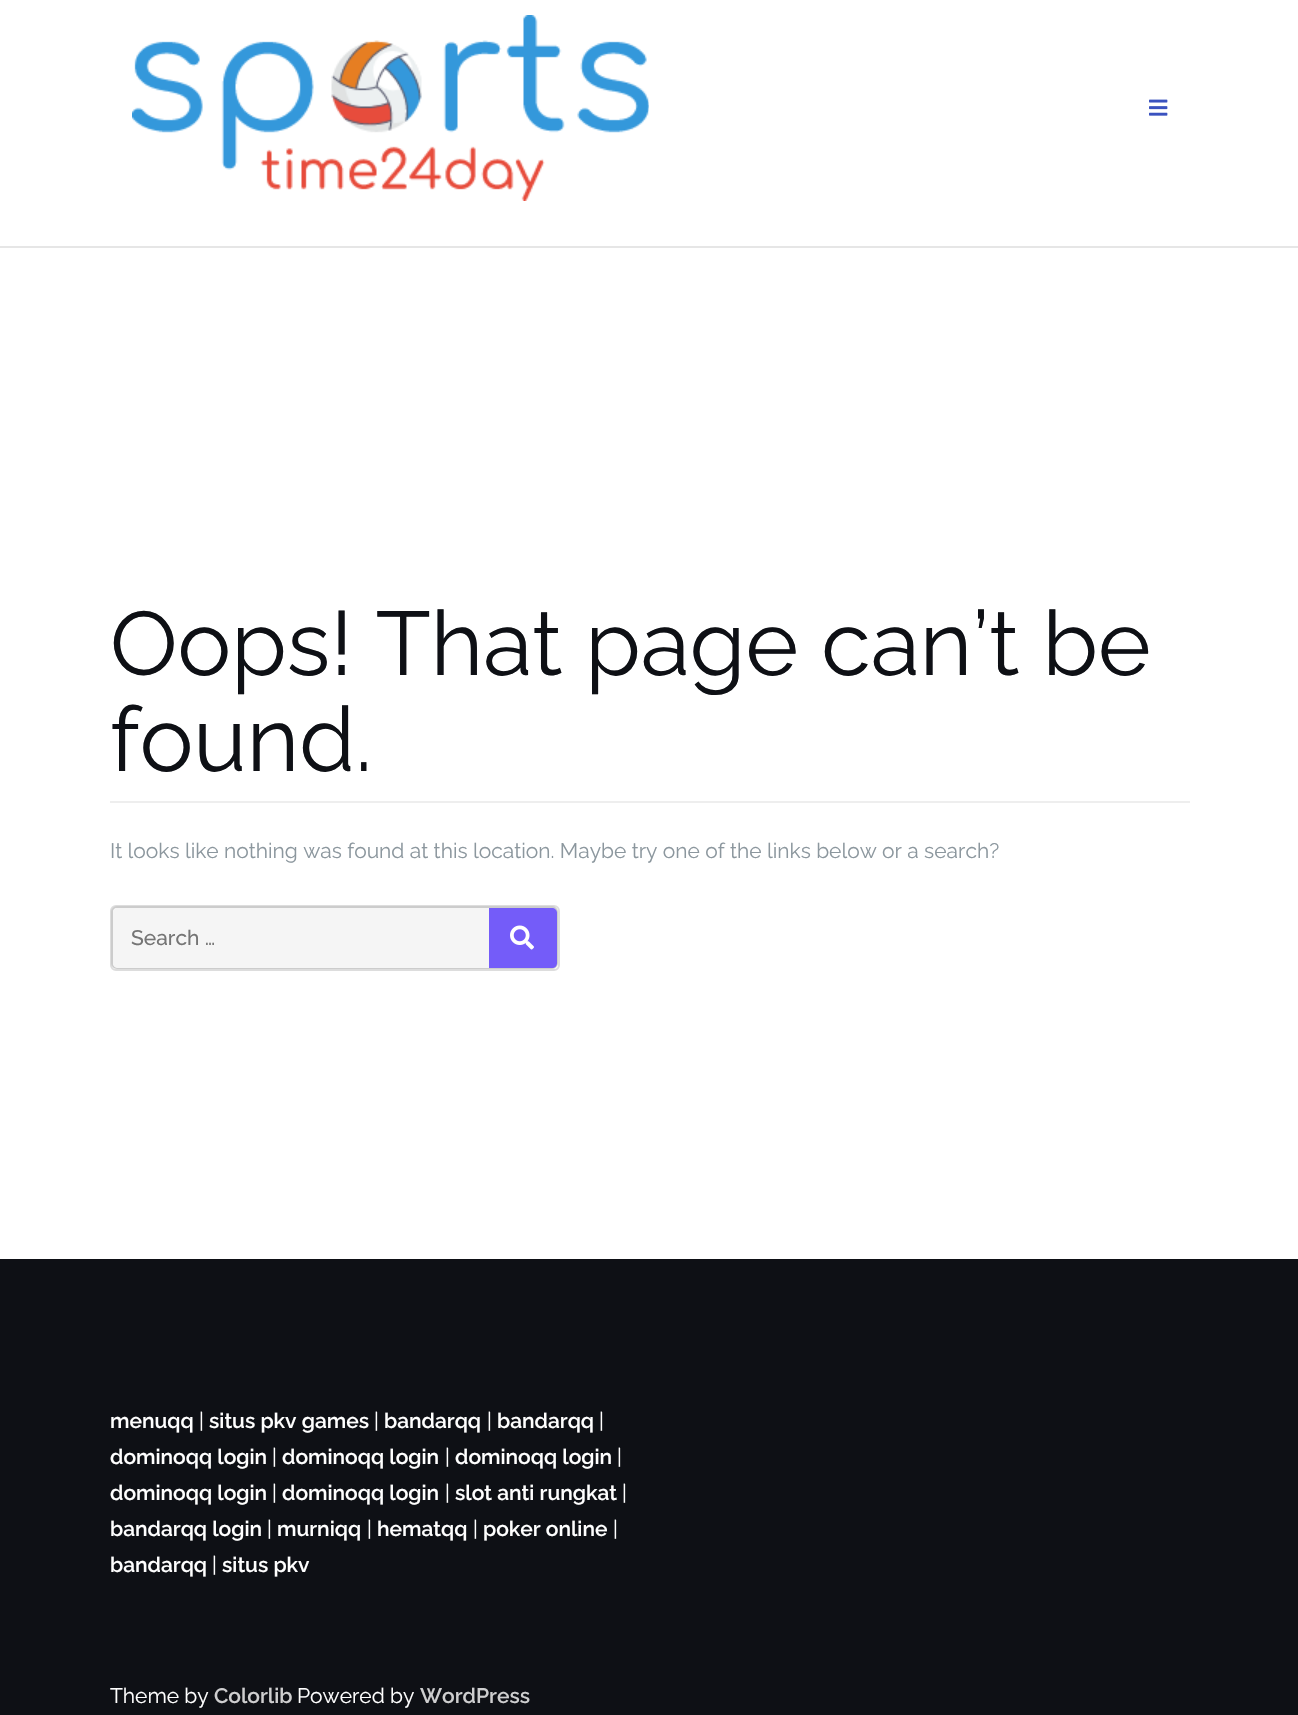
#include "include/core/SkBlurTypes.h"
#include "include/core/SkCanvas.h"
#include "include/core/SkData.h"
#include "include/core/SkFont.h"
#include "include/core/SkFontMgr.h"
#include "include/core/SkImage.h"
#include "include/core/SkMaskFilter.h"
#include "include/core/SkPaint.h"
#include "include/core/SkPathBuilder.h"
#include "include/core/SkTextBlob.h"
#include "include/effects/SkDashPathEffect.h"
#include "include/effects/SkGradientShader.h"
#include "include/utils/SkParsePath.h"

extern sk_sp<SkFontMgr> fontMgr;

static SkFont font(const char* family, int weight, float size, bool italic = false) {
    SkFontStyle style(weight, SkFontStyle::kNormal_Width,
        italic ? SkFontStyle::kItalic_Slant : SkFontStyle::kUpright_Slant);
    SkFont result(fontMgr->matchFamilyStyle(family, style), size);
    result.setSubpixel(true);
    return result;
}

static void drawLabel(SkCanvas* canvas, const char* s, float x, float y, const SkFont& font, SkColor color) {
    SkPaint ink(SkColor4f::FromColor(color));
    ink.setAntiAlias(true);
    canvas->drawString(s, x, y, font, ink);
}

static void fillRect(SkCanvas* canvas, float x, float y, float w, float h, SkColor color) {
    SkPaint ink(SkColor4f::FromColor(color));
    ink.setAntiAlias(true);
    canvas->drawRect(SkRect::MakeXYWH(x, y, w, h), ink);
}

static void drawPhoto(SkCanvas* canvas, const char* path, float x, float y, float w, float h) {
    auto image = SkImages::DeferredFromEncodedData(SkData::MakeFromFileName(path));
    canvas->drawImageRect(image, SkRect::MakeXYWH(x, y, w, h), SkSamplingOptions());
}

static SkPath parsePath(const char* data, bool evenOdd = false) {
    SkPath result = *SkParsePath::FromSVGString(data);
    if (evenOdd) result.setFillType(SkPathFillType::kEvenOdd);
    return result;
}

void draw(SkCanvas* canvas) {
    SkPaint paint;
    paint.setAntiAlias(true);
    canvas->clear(0xFFFFFFFF);
    fillRect(canvas, 0, 246, 1298, 2, 0xFFE6E6E6);
    drawPhoto(canvas, "assets/img1.png", 132, 15, 517, 186);
    drawPhoto(canvas, "assets/img2.png", 1149, 99, 19, 17);
    fillRect(canvas, 110, 801, 1080, 2, 0xFFEEEEEE);
    SkFont font1 = font("Raleway", 400, 90);
    drawLabel(canvas, "Oops! That page can’t be", 110, 675, font1, 0xFF0E1015);
    drawLabel(canvas, "found.", 110, 771, font1, 0xFF0E1015);
    SkFont font2 = font("Raleway", 400, 21);
    drawLabel(canvas, "It looks like nothing was found at this location. Maybe try one of the links below or a search?", 110, 858, font2, 0xFF8C979E);
    paint.setStroke(true);
    paint.setStrokeWidth(2);
    paint.setColor(0xFFDDDDDD);
    canvas->drawRoundRect(SkRect::MakeXYWH(111, 906, 448, 64), 5, 5, paint);
    paint.setColor(0xFFCCCCCC);
    canvas->drawRoundRect(SkRect::MakeXYWH(112, 907, 445, 61), 5, 5, paint);
    paint.setStroke(false);
    paint.setColor(0xFFF5F5F5);
    canvas->drawPath(parsePath("M118 908H489V968H118C115 968 113 966 113 963V913C113 910 115 908 118 908Z"), paint);
    SkFont font3 = font("Raleway", 500, 21);
    drawLabel(canvas, "Search …", 131, 945, font3, 0xFF757575);
    paint.setColor(0xFF745CF9);
    canvas->drawPath(parsePath("M489 908H552C555 908 557 910 557 913V963C557 966 555 968 552 968H489Z"), paint);
    drawPhoto(canvas, "assets/img3.png", 510, 925, 24, 25);
    fillRect(canvas, 0, 1259, 1298, 456, 0xFF0E1015);
    SkFont font4 = font("Raleway", 600, 21);
    drawLabel(canvas, "menuqq", 110, 1428, font4, 0xFFFFFFFF);
    drawLabel(canvas, "|", 199, 1428, font2, 0xFFFFFFFF);
    drawLabel(canvas, "situs pkv games", 209, 1428, font4, 0xFFFFFFFF);
    drawLabel(canvas, "|", 374, 1428, font2, 0xFFFFFFFF);
    drawLabel(canvas, "bandarqq", 384, 1428, font4, 0xFFFFFFFF);
    drawLabel(canvas, "|", 487, 1428, font2, 0xFFFFFFFF);
    drawLabel(canvas, "bandarqq", 497, 1428, font4, 0xFFFFFFFF);
    drawLabel(canvas, "|", 599, 1428, font2, 0xFFFFFFFF);
    drawLabel(canvas, "dominoqq login", 110, 1464, font4, 0xFFFFFFFF);
    drawLabel(canvas, "|", 272, 1464, font2, 0xFFFFFFFF);
    drawLabel(canvas, "dominoqq login", 282, 1464, font4, 0xFFFFFFFF);
    drawLabel(canvas, "|", 445, 1464, font2, 0xFFFFFFFF);
    drawLabel(canvas, "dominoqq login", 455, 1464, font4, 0xFFFFFFFF);
    drawLabel(canvas, "|", 617, 1464, font2, 0xFFFFFFFF);
    drawLabel(canvas, "dominoqq login", 110, 1500, font4, 0xFFFFFFFF);
    drawLabel(canvas, "|", 272, 1500, font2, 0xFFFFFFFF);
    drawLabel(canvas, "dominoqq login", 282, 1500, font4, 0xFFFFFFFF);
    drawLabel(canvas, "|", 445, 1500, font2, 0xFFFFFFFF);
    drawLabel(canvas, "slot anti rungkat", 455, 1500, font4, 0xFFFFFFFF);
    drawLabel(canvas, "|", 622, 1500, font2, 0xFFFFFFFF);
    drawLabel(canvas, "bandarqq login", 110, 1536, font4, 0xFFFFFFFF);
    drawLabel(canvas, "|", 267, 1536, font2, 0xFFFFFFFF);
    drawLabel(canvas, "murniqq", 277, 1536, font4, 0xFFFFFFFF);
    drawLabel(canvas, "|", 367, 1536, font2, 0xFFFFFFFF);
    drawLabel(canvas, "hematqq", 377, 1536, font4, 0xFFFFFFFF);
    drawLabel(canvas, "|", 473, 1536, font2, 0xFFFFFFFF);
    drawLabel(canvas, "poker online", 483, 1536, font4, 0xFFFFFFFF);
    drawLabel(canvas, "|", 613, 1536, font2, 0xFFFFFFFF);
    drawLabel(canvas, "bandarqq", 110, 1572, font4, 0xFFFFFFFF);
    drawLabel(canvas, "|", 212, 1572, font2, 0xFFFFFFFF);
    drawLabel(canvas, "situs pkv", 222, 1572, font4, 0xFFFFFFFF);
    drawLabel(canvas, "Theme by", 110, 1703, font2, 0xFFFFFFFF);
    drawLabel(canvas, "Colorlib", 214, 1703, font4, 0xFFCECECF);
    drawLabel(canvas, "Powered by", 297, 1703, font2, 0xFFFFFFFF);
    drawLabel(canvas, "WordPress", 420, 1703, font4, 0xFFCECECF);
}
